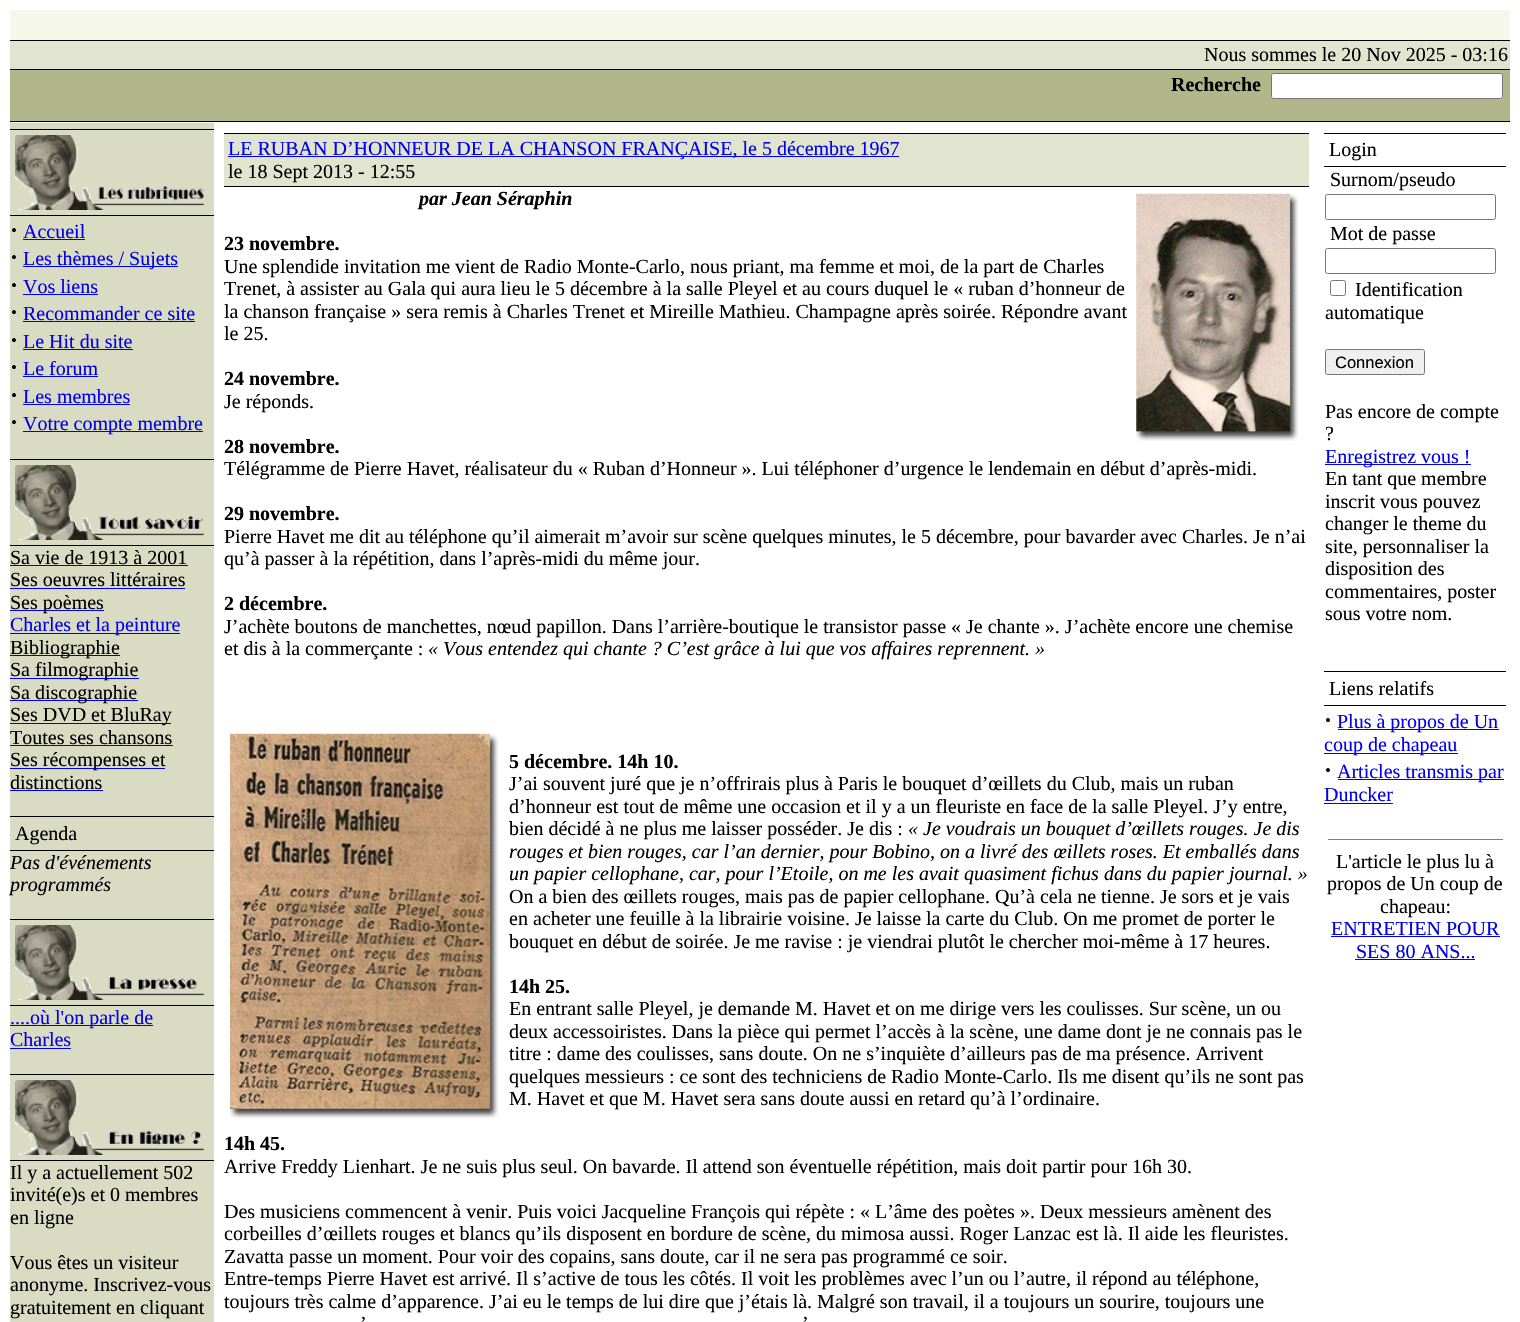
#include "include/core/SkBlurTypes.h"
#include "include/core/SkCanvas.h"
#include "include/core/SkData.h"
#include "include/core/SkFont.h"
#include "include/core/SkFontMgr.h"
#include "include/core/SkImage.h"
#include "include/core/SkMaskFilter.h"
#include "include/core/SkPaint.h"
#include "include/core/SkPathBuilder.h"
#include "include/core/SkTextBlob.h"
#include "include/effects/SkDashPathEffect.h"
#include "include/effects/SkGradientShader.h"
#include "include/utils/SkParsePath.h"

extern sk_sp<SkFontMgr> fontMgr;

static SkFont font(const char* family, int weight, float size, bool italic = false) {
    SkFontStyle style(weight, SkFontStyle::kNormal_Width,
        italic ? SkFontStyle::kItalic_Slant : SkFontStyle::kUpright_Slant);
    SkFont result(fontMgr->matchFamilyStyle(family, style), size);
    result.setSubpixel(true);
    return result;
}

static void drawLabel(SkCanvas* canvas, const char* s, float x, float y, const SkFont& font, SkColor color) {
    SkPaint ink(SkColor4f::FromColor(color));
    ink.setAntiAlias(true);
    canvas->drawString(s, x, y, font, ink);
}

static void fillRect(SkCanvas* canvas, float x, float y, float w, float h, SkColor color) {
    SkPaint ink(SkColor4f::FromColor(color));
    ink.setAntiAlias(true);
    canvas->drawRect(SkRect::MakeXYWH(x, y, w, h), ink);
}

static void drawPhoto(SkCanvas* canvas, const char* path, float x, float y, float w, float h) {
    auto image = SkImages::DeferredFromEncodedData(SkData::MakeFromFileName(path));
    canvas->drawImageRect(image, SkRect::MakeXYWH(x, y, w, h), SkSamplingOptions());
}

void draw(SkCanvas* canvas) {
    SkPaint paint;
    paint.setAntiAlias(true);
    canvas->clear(0xFFFFFFFF);
    fillRect(canvas, 10, 10, 1500, 113, 0xFFF6F7EB);
    fillRect(canvas, 10, 40, 1500, 1, 0xFF000000);
    fillRect(canvas, 10, 41, 1500, 28, 0xFFE1E4CE);
    SkFont font1 = font("Liberation Serif", 400, 20);
    drawLabel(canvas, "Nous sommes le 20 Nov 2025 - 03:16", 1204, 61, font1, 0xFF000000);
    fillRect(canvas, 10, 69, 1500, 1, 0xFF000000);
    fillRect(canvas, 10, 70, 1500, 51, 0xFFB1B78B);
    SkFont font2 = font("Liberation Serif", 700, 20);
    drawLabel(canvas, "Recherche", 1171, 91, font2, 0xFF000000);
    paint.setColor(0xFFFFFFFF);
    canvas->drawRoundRect(SkRect::MakeXYWH(1271.5f, 73.5f, 231, 25), 2, 2, paint);
    paint.setStroke(true);
    paint.setStrokeWidth(1);
    paint.setColor(0xFF767676);
    canvas->drawRoundRect(SkRect::MakeXYWH(1271.5f, 73.5f, 231, 25), 2, 2, paint);
    fillRect(canvas, 10, 121, 1500, 1, 0xFF000000);
    fillRect(canvas, 10, 123, 204, 6, 0xFFD9DCC2);
    fillRect(canvas, 10, 130, 204, 1192, 0xFFD9DCC2);
    fillRect(canvas, 10, 129, 204, 1, 0xFF000000);
    drawPhoto(canvas, "assets/img1.png", 15, 135, 189, 75);
    fillRect(canvas, 10, 215, 204, 1, 0xFF000000);
    SkFont font3 = font("Liberation Serif", 700, 24);
    drawLabel(canvas, "·", 10, 238, font3, 0xFF000000);
    drawLabel(canvas, "Accueil", 23, 238, font1, 0xFF0000EE);
    fillRect(canvas, 23, 239, 62, 1, 0xFF0000EE);
    drawLabel(canvas, "·", 10, 265, font3, 0xFF000000);
    fillRect(canvas, 23, 266, 155, 1, 0xFF0000EE);
    drawLabel(canvas, "Les thèmes / Sujets", 23, 265, font1, 0xFF0000EE);
    drawLabel(canvas, "·", 10, 293, font3, 0xFF000000);
    drawLabel(canvas, "Vos liens", 23, 293, font1, 0xFF0000EE);
    fillRect(canvas, 23, 294, 75, 1, 0xFF0000EE);
    drawLabel(canvas, "·", 10, 320, font3, 0xFF000000);
    drawLabel(canvas, "Recommander ce site", 23, 320, font1, 0xFF0000EE);
    fillRect(canvas, 23, 321, 172, 1, 0xFF0000EE);
    drawLabel(canvas, "·", 10, 348, font3, 0xFF000000);
    drawLabel(canvas, "Le Hit du site", 23, 348, font1, 0xFF0000EE);
    fillRect(canvas, 23, 349, 110, 1, 0xFF0000EE);
    drawLabel(canvas, "·", 10, 375, font3, 0xFF000000);
    drawLabel(canvas, "Le forum", 23, 375, font1, 0xFF0000EE);
    fillRect(canvas, 23, 376, 75, 1, 0xFF0000EE);
    drawLabel(canvas, "·", 10, 403, font3, 0xFF000000);
    drawLabel(canvas, "Les membres", 23, 403, font1, 0xFF0000EE);
    fillRect(canvas, 23, 404, 107, 1, 0xFF0000EE);
    drawLabel(canvas, "·", 10, 430, font3, 0xFF000000);
    fillRect(canvas, 23, 431, 180, 1, 0xFF0000EE);
    drawLabel(canvas, "Votre compte membre", 23, 430, font1, 0xFF0000EE);
    fillRect(canvas, 10, 459, 204, 1, 0xFF000000);
    drawPhoto(canvas, "assets/img2.png", 15, 465, 189, 75);
    fillRect(canvas, 10, 545, 204, 1, 0xFF000000);
    drawLabel(canvas, "Sa vie de 1913 à 2001", 10, 564, font1, 0xFF000000);
    fillRect(canvas, 10, 565, 178, 1, 0xFF0000EE);
    drawLabel(canvas, "Ses oeuvres littéraires", 10, 586, font1, 0xFF000000);
    fillRect(canvas, 10, 588, 175, 1, 0xFF0000EE);
    fillRect(canvas, 10, 610, 94, 1, 0xFF0000EE);
    drawLabel(canvas, "Ses poèmes", 10, 609, font1, 0xFF000000);
    fillRect(canvas, 10, 633, 170, 1, 0xFF0000EE);
    drawLabel(canvas, "Charles et la peinture", 10, 631, font1, 0xFF0000EE);
    fillRect(canvas, 10, 655, 110, 1, 0xFF0000EE);
    drawLabel(canvas, "Bibliographie", 10, 654, font1, 0xFF000000);
    fillRect(canvas, 10, 678, 129, 1, 0xFF0000EE);
    drawLabel(canvas, "Sa filmographie", 10, 676, font1, 0xFF000000);
    fillRect(canvas, 10, 700, 128, 1, 0xFF0000EE);
    drawLabel(canvas, "Sa discographie", 10, 699, font1, 0xFF000000);
    fillRect(canvas, 10, 723, 161, 1, 0xFF0000EE);
    drawLabel(canvas, "Ses DVD et BluRay", 10, 721, font1, 0xFF000000);
    drawLabel(canvas, "Toutes ses chansons", 10, 744, font1, 0xFF000000);
    fillRect(canvas, 10, 745, 163, 1, 0xFF0000EE);
    fillRect(canvas, 10, 768, 155, 1, 0xFF0000EE);
    drawLabel(canvas, "Ses récompenses et", 10, 766, font1, 0xFF000000);
    drawLabel(canvas, "distinctions", 10, 789, font1, 0xFF000000);
    fillRect(canvas, 10, 790, 93, 1, 0xFF0000EE);
    fillRect(canvas, 10, 816, 204, 1, 0xFF000000);
    drawLabel(canvas, "Agenda", 15, 840, font1, 0xFF000000);
    fillRect(canvas, 10, 850, 204, 1, 0xFF000000);
    SkFont font4 = font("Liberation Serif", 400, 20, true);
    drawLabel(canvas, "Pas d'événements", 10, 869, font4, 0xFF000000);
    drawLabel(canvas, "programmés", 10, 891, font4, 0xFF000000);
    fillRect(canvas, 10, 919, 204, 1, 0xFF000000);
    drawPhoto(canvas, "assets/img3.png", 15, 925, 189, 75);
    fillRect(canvas, 10, 1005, 204, 1, 0xFF000000);
    fillRect(canvas, 10, 1025, 143, 1, 0xFF0000EE);
    drawLabel(canvas, "....où l'on parle de", 10, 1024, font1, 0xFF0000EE);
    drawLabel(canvas, "Charles", 10, 1046, font1, 0xFF0000EE);
    fillRect(canvas, 10, 1048, 61, 1, 0xFF0000EE);
    fillRect(canvas, 10, 1074, 204, 1, 0xFF000000);
    drawPhoto(canvas, "assets/img4.png", 15, 1080, 189, 75);
    fillRect(canvas, 10, 1160, 204, 1, 0xFF000000);
    drawLabel(canvas, "Il y a actuellement 502", 10, 1179, font1, 0xFF000000);
    drawLabel(canvas, "invité(e)s et 0 membres", 10, 1201, font1, 0xFF000000);
    drawLabel(canvas, "en ligne", 10, 1224, font1, 0xFF000000);
    drawLabel(canvas, "Vous êtes un visiteur", 10, 1269, font1, 0xFF000000);
    drawLabel(canvas, "anonyme. Inscrivez-vous", 10, 1291, font1, 0xFF000000);
    drawLabel(canvas, "gratuitement en cliquant", 10, 1314, font1, 0xFF000000);
    fillRect(canvas, 224, 133, 1085, 1, 0xFF000000);
    fillRect(canvas, 224, 134, 1085, 52, 0xFFE1E4CE);
    fillRect(canvas, 228, 156, 671, 1, 0xFF0000EE);
    drawLabel(canvas, "LE RUBAN D’HONNEUR DE LA CHANSON FRANÇAISE, le 5 décembre 1967", 228, 155, font1, 0xFF0000EE);
    drawLabel(canvas, "le 18 Sept 2013 - 12:55", 228, 178, font1, 0xFF000000);
    fillRect(canvas, 224, 186, 1085, 1, 0xFF000000);
    drawLabel(canvas, "23 novembre.", 224, 250, font2, 0xFF000000);
    SkFont font5 = font("Liberation Serif", 700, 20, true);
    drawLabel(canvas, "par Jean Séraphin", 419, 205, font5, 0xFF000000);
    drawPhoto(canvas, "assets/img5.png", 1136, 193, 163, 248);
    drawLabel(canvas, "Une splendide invitation me vient de Radio Monte-Carlo, nous priant, ma femme et moi, de la part de Charles", 224, 273, font1, 0xFF000000);
    drawLabel(canvas, "Trenet, à assister au Gala qui aura lieu le 5 décembre à la salle Pleyel et au cours duquel le « ruban d’honneur de", 224, 295, font1, 0xFF000000);
    drawLabel(canvas, "la chanson française » sera remis à Charles Trenet et Mireille Mathieu. Champagne après soirée. Répondre avant", 224, 318, font1, 0xFF000000);
    drawLabel(canvas, "le 25.", 224, 340, font1, 0xFF000000);
    drawLabel(canvas, "24 novembre.", 224, 385, font2, 0xFF000000);
    drawLabel(canvas, "Je réponds.", 224, 408, font1, 0xFF000000);
    drawLabel(canvas, "28 novembre.", 224, 453, font2, 0xFF000000);
    drawLabel(canvas, "Télégramme de Pierre Havet, réalisateur du « Ruban d’Honneur ». Lui téléphoner d’urgence le lendemain en début d’après-midi.", 224, 475, font1, 0xFF000000);
    drawLabel(canvas, "29 novembre.", 224, 520, font2, 0xFF000000);
    drawLabel(canvas, "Pierre Havet me dit au téléphone qu’il aimerait m’avoir sur scène quelques minutes, le 5 décembre, pour bavarder avec Charles. Je n’ai", 224, 543, font1, 0xFF000000);
    drawLabel(canvas, "qu’à passer à la répétition, dans l’après-midi du même jour.", 224, 565, font1, 0xFF000000);
    drawLabel(canvas, "2 décembre.", 224, 610, font2, 0xFF000000);
    drawLabel(canvas, "J’achète boutons de manchettes, nœud papillon. Dans l’arrière-boutique le transistor passe « Je chante ». J’achète encore une chemise", 224, 633, font1, 0xFF000000);
    drawLabel(canvas, "et dis à la commerçante :", 224, 655, font1, 0xFF000000);
    drawLabel(canvas, "« Vous entendez qui chante ? C’est grâce à lui que vos affaires reprennent. »", 428, 655, font4, 0xFF000000);
    drawPhoto(canvas, "assets/img6.png", 230, 733, 269, 386);
    drawLabel(canvas, "5 décembre. 14h 10.", 509, 768, font2, 0xFF000000);
    drawLabel(canvas, "J’ai souvent juré que je n’offrirais plus à Paris le bouquet d’œillets du Club, mais un ruban", 509, 790, font1, 0xFF000000);
    drawLabel(canvas, "d’honneur est tout de même une occasion et il y a un fleuriste en face de la salle Pleyel. J’y entre,", 509, 813, font1, 0xFF000000);
    drawLabel(canvas, "bien décidé à ne plus me laisser posséder. Je dis :", 509, 835, font1, 0xFF000000);
    drawLabel(canvas, "« Je voudrais un bouquet d’œillets rouges. Je dis", 908, 835, font4, 0xFF000000);
    drawLabel(canvas, "rouges et bien rouges, car l’an dernier, pour Bobino, on a livré des œillets roses. Et emballés dans", 509, 858, font4, 0xFF000000);
    drawLabel(canvas, "un papier cellophane, car, pour l’Etoile, on me les avait quasiment fichus dans du papier journal. »", 509, 880, font4, 0xFF000000);
    drawLabel(canvas, "On a bien des œillets rouges, mais pas de papier cellophane. Qu’à cela ne tienne. Je sors et je vais", 509, 903, font1, 0xFF000000);
    drawLabel(canvas, "en acheter une feuille à la librairie voisine. Je laisse la carte du Club. On me promet de porter le", 509, 925, font1, 0xFF000000);
    drawLabel(canvas, "bouquet en début de soirée. Je me ravise : je viendrai plutôt le chercher moi-même à 17 heures.", 509, 948, font1, 0xFF000000);
    drawLabel(canvas, "14h 25.", 509, 993, font2, 0xFF000000);
    drawLabel(canvas, "En entrant salle Pleyel, je demande M. Havet et on me dirige vers les coulisses. Sur scène, un ou", 509, 1015, font1, 0xFF000000);
    drawLabel(canvas, "deux accessoiristes. Dans la pièce qui permet l’accès à la scène, une dame dont je ne connais pas le", 509, 1038, font1, 0xFF000000);
    drawLabel(canvas, "titre : dame des coulisses, sans doute. On ne s’inquiète d’ailleurs pas de ma présence. Arrivent", 509, 1060, font1, 0xFF000000);
    drawLabel(canvas, "quelques messieurs : ce sont des techniciens de Radio Monte-Carlo. Ils me disent qu’ils ne sont pas", 509, 1083, font1, 0xFF000000);
    drawLabel(canvas, "M. Havet et que M. Havet sera sans doute aussi en retard qu’à l’ordinaire.", 509, 1105, font1, 0xFF000000);
    drawLabel(canvas, "14h 45.", 224, 1150, font2, 0xFF000000);
    drawLabel(canvas, "Arrive Freddy Lienhart. Je ne suis plus seul. On bavarde. Il attend son éventuelle répétition, mais doit partir pour 16h 30.", 224, 1173, font1, 0xFF000000);
    drawLabel(canvas, "Des musiciens commencent à venir. Puis voici Jacqueline François qui répète : « L’âme des poètes ». Deux messieurs amènent des", 224, 1218, font1, 0xFF000000);
    drawLabel(canvas, "corbeilles d’œillets rouges et blancs qu’ils disposent en bordure de scène, du mimosa aussi. Roger Lanzac est là. Il aide les fleuristes.", 224, 1240, font1, 0xFF000000);
    drawLabel(canvas, "Zavatta passe un moment. Pour voir des copains, sans doute, car il ne sera pas programmé ce soir.", 224, 1263, font1, 0xFF000000);
    drawLabel(canvas, "Entre-temps Pierre Havet est arrivé. Il s’active de tous les côtés. Il voit les problèmes avec l’un ou l’autre, il répond au téléphone,", 224, 1285, font1, 0xFF000000);
    drawLabel(canvas, "toujours très calme d’apparence. J’ai eu le temps de lui dire que j’étais là. Malgré son travail, il a toujours un sourire, toujours une", 224, 1308, font1, 0xFF000000);
    drawLabel(canvas, "’", 360, 1330, font1, 0xFF000000);
    drawLabel(canvas, "’", 802, 1330, font1, 0xFF000000);
    fillRect(canvas, 1324, 133, 182, 1, 0xFF000000);
    drawLabel(canvas, "Login", 1329, 156, font1, 0xFF000000);
    fillRect(canvas, 1324, 166, 182, 1, 0xFF000000);
    drawLabel(canvas, "Surnom/pseudo", 1330, 186, font1, 0xFF000000);
    canvas->drawRoundRect(SkRect::MakeXYWH(1325.5f, 194.5f, 170, 25), 2, 2, paint);
    drawLabel(canvas, "Mot de passe", 1330, 240, font1, 0xFF000000);
    canvas->drawRoundRect(SkRect::MakeXYWH(1325.5f, 248.5f, 170, 25), 2, 2, paint);
    canvas->drawRoundRect(SkRect::MakeXYWH(1330.5f, 280.5f, 15, 15), 2, 2, paint);
    drawLabel(canvas, "Identification", 1355, 296, font1, 0xFF000000);
    drawLabel(canvas, "automatique", 1325, 319, font1, 0xFF000000);
    paint.setStroke(false);
    paint.setColor(0xFFEFEFEF);
    canvas->drawRoundRect(SkRect::MakeXYWH(1325.5f, 349.5f, 99, 25), 2, 2, paint);
    paint.setStroke(true);
    paint.setColor(0xFF767676);
    canvas->drawRoundRect(SkRect::MakeXYWH(1325.5f, 349.5f, 99, 25), 2, 2, paint);
    SkFont font6 = font("Liberation Sans", 400, 16.5f);
    drawLabel(canvas, "Connexion", 1335, 368, font6, 0xFF000000);
    drawLabel(canvas, "Pas encore de compte", 1325, 418, font1, 0xFF000000);
    drawLabel(canvas, "?", 1325, 440, font1, 0xFF000000);
    fillRect(canvas, 1325, 464, 146, 1, 0xFF0000EE);
    drawLabel(canvas, "Enregistrez vous !", 1325, 463, font1, 0xFF0000EE);
    drawLabel(canvas, "En tant que membre", 1325, 485, font1, 0xFF000000);
    drawLabel(canvas, "inscrit vous pouvez", 1325, 508, font1, 0xFF000000);
    drawLabel(canvas, "changer le theme du", 1325, 530, font1, 0xFF000000);
    drawLabel(canvas, "site, personnaliser la", 1325, 553, font1, 0xFF000000);
    drawLabel(canvas, "disposition des", 1325, 575, font1, 0xFF000000);
    drawLabel(canvas, "commentaires, poster", 1325, 598, font1, 0xFF000000);
    drawLabel(canvas, "sous votre nom.", 1325, 620, font1, 0xFF000000);
    fillRect(canvas, 1324, 671, 182, 1, 0xFF000000);
    drawLabel(canvas, "Liens relatifs", 1329, 695, font1, 0xFF000000);
    fillRect(canvas, 1324, 705, 182, 1, 0xFF000000);
    drawLabel(canvas, "·", 1324, 728, font3, 0xFF000000);
    fillRect(canvas, 1338, 729, 161, 1, 0xFF0000EE);
    drawLabel(canvas, "Plus à propos de Un", 1337, 728, font1, 0xFF0000EE);
    fillRect(canvas, 1324, 753, 134, 1, 0xFF0000EE);
    drawLabel(canvas, "coup de chapeau", 1324, 751, font1, 0xFF0000EE);
    drawLabel(canvas, "·", 1324, 778, font3, 0xFF000000);
    fillRect(canvas, 1338, 779, 166, 1, 0xFF0000EE);
    drawLabel(canvas, "Articles transmis par", 1337, 778, font1, 0xFF0000EE);
    drawLabel(canvas, "Duncker", 1324, 801, font1, 0xFF0000EE);
    fillRect(canvas, 1324, 803, 69, 1, 0xFF0000EE);
    fillRect(canvas, 1328, 839, 175, 1, 0xFF808080);
    drawLabel(canvas, "L'article le plus lu à", 1336, 868, font1, 0xFF000000);
    drawLabel(canvas, "propos de Un coup de", 1327, 890, font1, 0xFF000000);
    drawLabel(canvas, "chapeau:", 1380, 913, font1, 0xFF000000);
    drawLabel(canvas, "ENTRETIEN POUR", 1331, 935, font1, 0xFF0000EE);
    fillRect(canvas, 1331, 936, 169, 1, 0xFF0000EE);
    drawLabel(canvas, "SES 80 ANS...", 1356, 958, font1, 0xFF0000EE);
    fillRect(canvas, 1355, 959, 120, 1, 0xFF0000EE);
}
